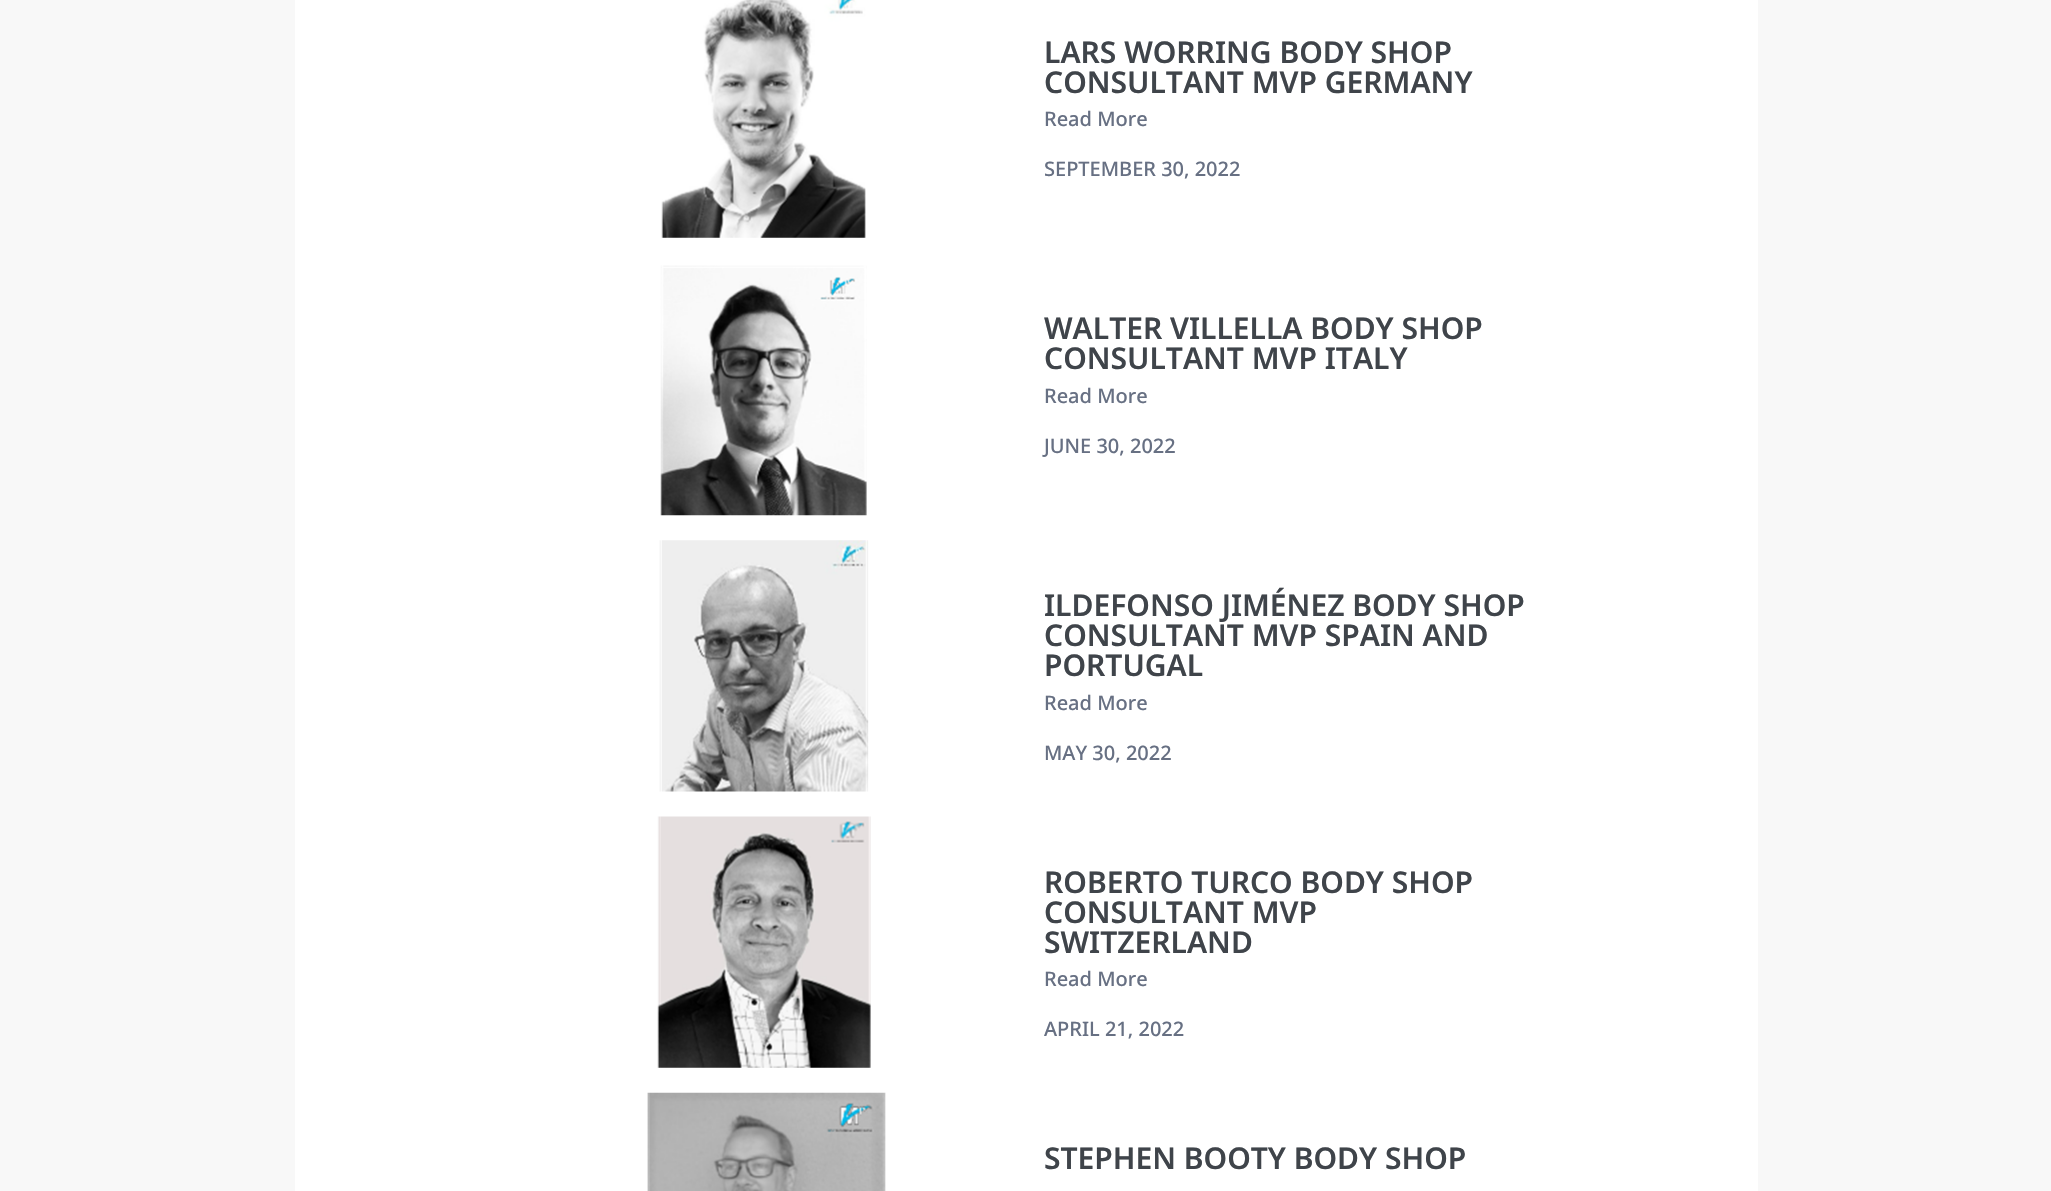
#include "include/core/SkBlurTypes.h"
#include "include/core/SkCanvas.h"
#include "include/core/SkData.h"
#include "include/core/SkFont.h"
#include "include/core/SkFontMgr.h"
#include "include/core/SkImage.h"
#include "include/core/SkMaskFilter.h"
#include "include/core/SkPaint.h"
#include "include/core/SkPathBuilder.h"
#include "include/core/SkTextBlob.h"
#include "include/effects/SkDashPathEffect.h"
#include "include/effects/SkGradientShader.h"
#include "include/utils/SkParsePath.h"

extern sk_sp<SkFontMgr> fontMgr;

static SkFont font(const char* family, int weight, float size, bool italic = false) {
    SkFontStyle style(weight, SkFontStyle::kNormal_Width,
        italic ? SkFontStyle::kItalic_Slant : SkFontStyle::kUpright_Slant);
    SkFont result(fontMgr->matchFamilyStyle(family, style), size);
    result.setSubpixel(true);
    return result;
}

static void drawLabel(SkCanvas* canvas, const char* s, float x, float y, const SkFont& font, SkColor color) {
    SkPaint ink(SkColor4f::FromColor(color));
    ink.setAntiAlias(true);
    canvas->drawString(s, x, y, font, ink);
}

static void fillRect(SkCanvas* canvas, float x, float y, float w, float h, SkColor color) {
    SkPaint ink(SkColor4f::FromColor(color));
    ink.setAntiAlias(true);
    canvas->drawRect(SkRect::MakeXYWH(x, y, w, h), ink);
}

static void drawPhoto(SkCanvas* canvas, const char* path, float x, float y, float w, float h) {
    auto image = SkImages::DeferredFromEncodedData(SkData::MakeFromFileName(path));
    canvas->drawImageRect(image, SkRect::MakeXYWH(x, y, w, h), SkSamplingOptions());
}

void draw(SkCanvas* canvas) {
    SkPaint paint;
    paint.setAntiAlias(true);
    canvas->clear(0xFFF8F8F8);
    fillRect(canvas, 295, 0, 1463, 1191, 0xFFFFFFFF);
    drawPhoto(canvas, "assets/img1.png", 661, 0, 205, 238);
    SkFont font1 = font("Noto Sans", 600, 30);
    drawLabel(canvas, "LARS WORRING BODY SHOP", 1044, 63, font1, 0xFF3F444A);
    drawLabel(canvas, "CONSULTANT MVP GERMANY", 1044, 93, font1, 0xFF3F444A);
    SkFont font2 = font("Noto Sans", 500, 20);
    drawLabel(canvas, "Read More", 1044, 126, font2, 0xFF677083);
    drawLabel(canvas, "SEPTEMBER 30, 2022", 1044, 176, font2, 0xFF677083);
    drawPhoto(canvas, "assets/img2.png", 660, 265, 207, 251);
    drawLabel(canvas, "WALTER VILLELLA BODY SHOP", 1044, 339, font1, 0xFF3F444A);
    drawLabel(canvas, "CONSULTANT MVP ITALY", 1044, 369, font1, 0xFF3F444A);
    drawLabel(canvas, "Read More", 1044, 403, font2, 0xFF677083);
    drawLabel(canvas, "JUNE 30, 2022", 1044, 453, font2, 0xFF677083);
    drawPhoto(canvas, "assets/img3.png", 659, 540, 210, 252);
    drawLabel(canvas, "ILDEFONSO JIMÉNEZ BODY SHOP", 1044, 616, font1, 0xFF3F444A);
    drawLabel(canvas, "CONSULTANT MVP SPAIN AND", 1044, 646, font1, 0xFF3F444A);
    drawLabel(canvas, "PORTUGAL", 1044, 676, font1, 0xFF3F444A);
    drawLabel(canvas, "Read More", 1044, 710, font2, 0xFF677083);
    drawLabel(canvas, "MAY 30, 2022", 1044, 760, font2, 0xFF677083);
    drawPhoto(canvas, "assets/img4.png", 657, 816, 214, 252);
    drawLabel(canvas, "ROBERTO TURCO BODY SHOP", 1044, 893, font1, 0xFF3F444A);
    drawLabel(canvas, "CONSULTANT MVP", 1044, 923, font1, 0xFF3F444A);
    drawLabel(canvas, "SWITZERLAND", 1044, 953, font1, 0xFF3F444A);
    drawLabel(canvas, "Read More", 1044, 986, font2, 0xFF677083);
    drawLabel(canvas, "APRIL 21, 2022", 1044, 1036, font2, 0xFF677083);
    drawPhoto(canvas, "assets/img5.png", 647, 1092, 239, 99);
    drawLabel(canvas, "STEPHEN BOOTY BODY SHOP", 1044, 1169, font1, 0xFF3F444A);
}
